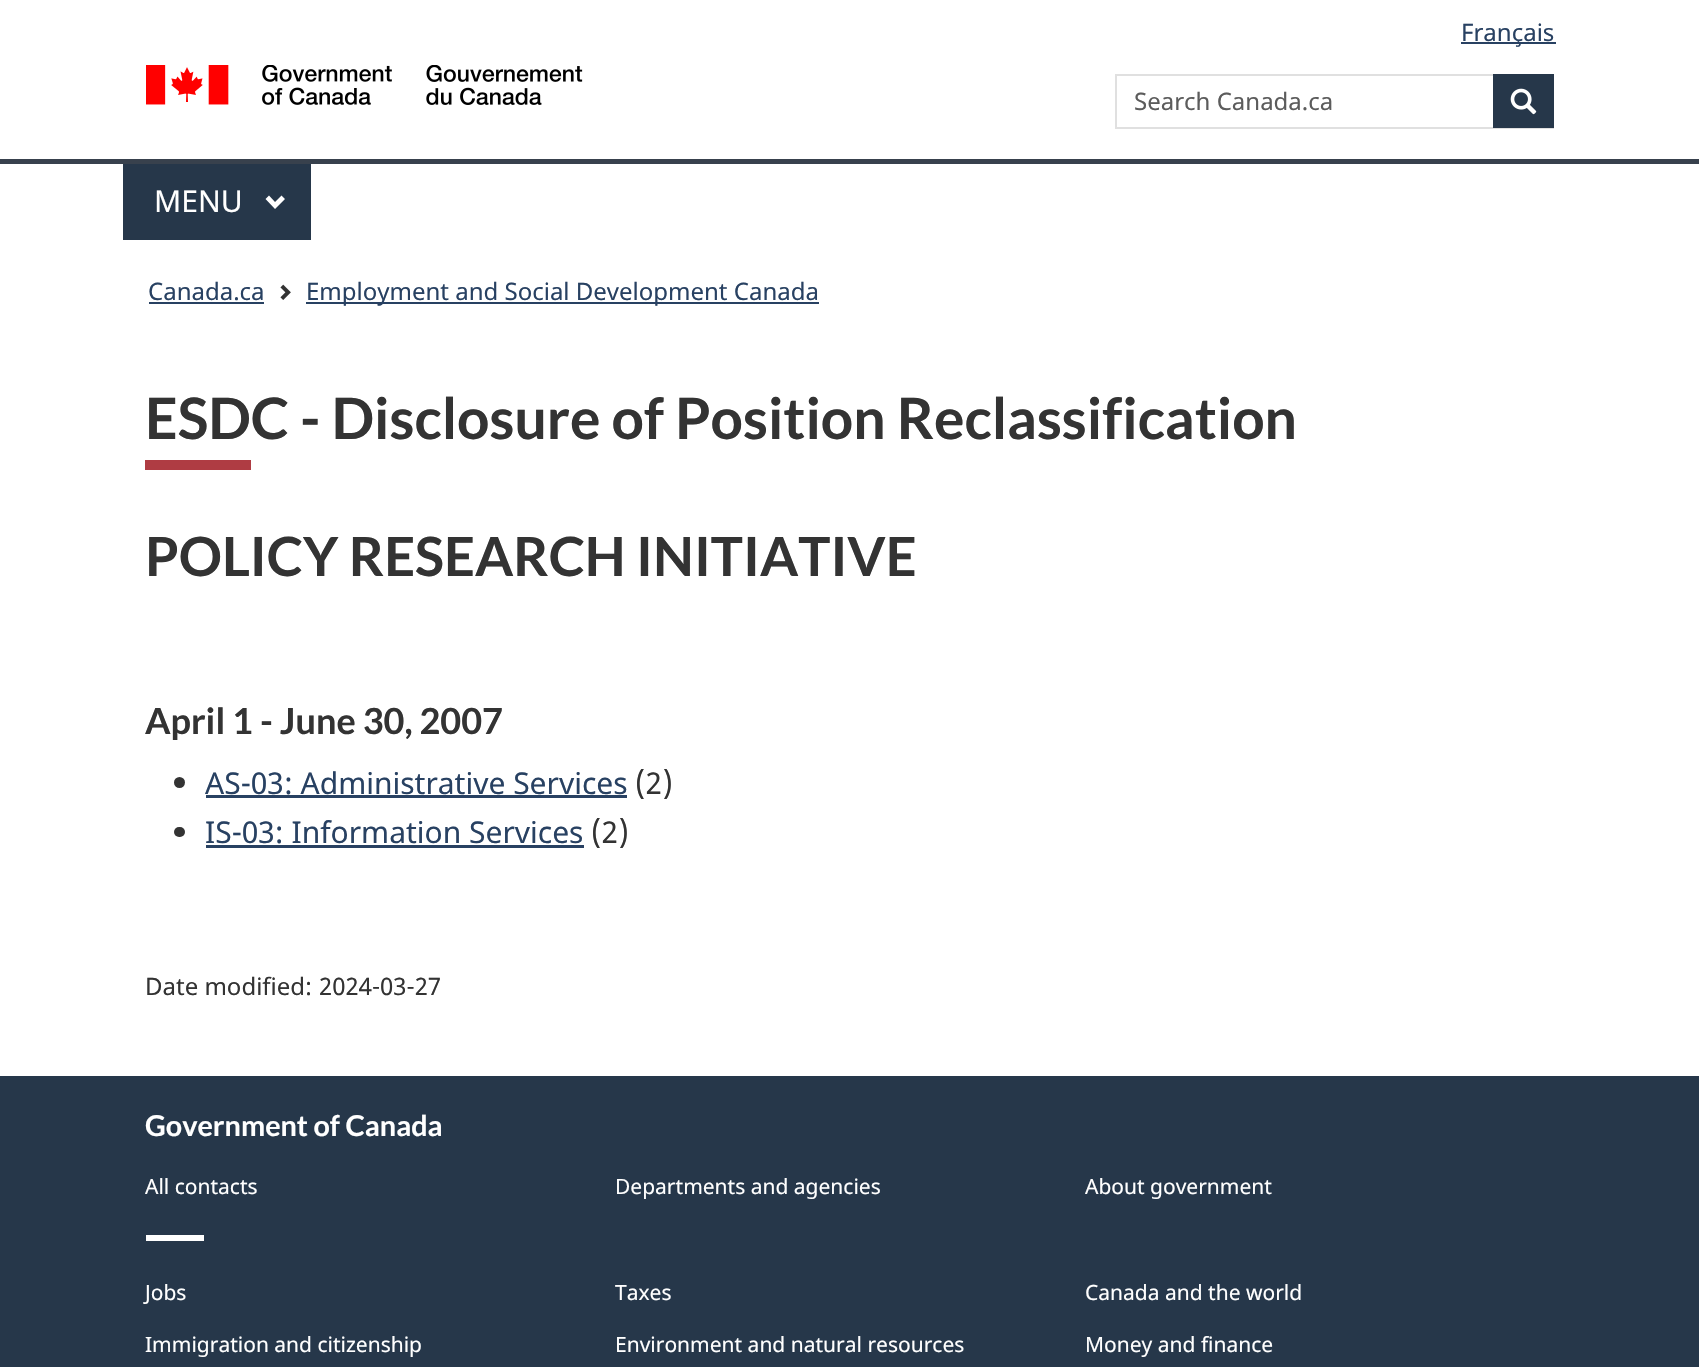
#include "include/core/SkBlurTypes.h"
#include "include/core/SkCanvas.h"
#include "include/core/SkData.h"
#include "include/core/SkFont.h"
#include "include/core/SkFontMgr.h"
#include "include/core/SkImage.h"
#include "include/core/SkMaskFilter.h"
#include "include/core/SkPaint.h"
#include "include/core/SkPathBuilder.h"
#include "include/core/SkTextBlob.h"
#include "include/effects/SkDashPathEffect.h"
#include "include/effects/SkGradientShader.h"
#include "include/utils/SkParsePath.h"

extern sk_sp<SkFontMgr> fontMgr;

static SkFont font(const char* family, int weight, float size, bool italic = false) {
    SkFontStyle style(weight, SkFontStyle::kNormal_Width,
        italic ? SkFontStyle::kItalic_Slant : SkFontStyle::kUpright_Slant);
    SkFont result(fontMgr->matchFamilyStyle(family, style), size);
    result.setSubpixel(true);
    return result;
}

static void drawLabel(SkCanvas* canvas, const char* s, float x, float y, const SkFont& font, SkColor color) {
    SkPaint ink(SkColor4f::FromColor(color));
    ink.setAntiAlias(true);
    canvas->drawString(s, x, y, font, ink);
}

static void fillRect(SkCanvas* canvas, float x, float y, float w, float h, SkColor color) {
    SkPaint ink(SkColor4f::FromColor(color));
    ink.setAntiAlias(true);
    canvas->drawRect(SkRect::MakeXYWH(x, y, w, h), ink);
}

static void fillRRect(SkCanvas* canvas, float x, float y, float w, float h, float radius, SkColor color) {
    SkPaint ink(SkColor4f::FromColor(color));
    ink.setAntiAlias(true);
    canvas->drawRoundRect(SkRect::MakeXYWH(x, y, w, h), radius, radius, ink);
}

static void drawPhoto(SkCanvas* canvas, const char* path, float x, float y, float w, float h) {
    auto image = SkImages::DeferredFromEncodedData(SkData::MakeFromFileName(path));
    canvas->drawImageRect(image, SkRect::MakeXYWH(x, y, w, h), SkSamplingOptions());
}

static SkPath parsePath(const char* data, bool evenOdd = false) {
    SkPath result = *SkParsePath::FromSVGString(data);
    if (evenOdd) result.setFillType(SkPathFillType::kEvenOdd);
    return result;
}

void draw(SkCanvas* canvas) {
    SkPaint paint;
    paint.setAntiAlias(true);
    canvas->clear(0xFFFFFFFF);
    fillRect(canvas, 1461, 42, 95, 2, 0xFF284162);
    SkFont font1 = font("Noto Sans", 400, 24);
    drawLabel(canvas, "Français", 1461, 41, font1, 0xFF284162);
    drawPhoto(canvas, "assets/img1.png", 146, 65, 437, 40);
    paint.setStroke(true);
    paint.setStrokeWidth(2);
    paint.setColor(0xFFE0E0E0);
    canvas->drawRect(SkRect::MakeXYWH(1116, 75, 437, 53), paint);
    drawLabel(canvas, "Search Canada.ca", 1134, 110, font1, 0xFF5C5C5C);
    fillRect(canvas, 1493, 74, 61, 54, 0xFF26374A);
    drawPhoto(canvas, "assets/img2.png", 1510, 88, 27, 27);
    fillRect(canvas, 0, 159, 1699, 5, 0xFF38414D);
    fillRect(canvas, 123, 164, 188, 76, 0xFF26374A);
    SkFont font2 = font("Noto Sans", 400, 30);
    drawLabel(canvas, "MENU", 154, 212, font2, 0xFFFFFFFF);
    paint.setStroke(false);
    paint.setColor(0xFFFFFFFF);
    canvas->drawPath(parsePath("M285 199L275 209L265.5 199L269 195.5L275 202L281.5 195.5Z"), paint);
    drawLabel(canvas, "Canada.ca", 148, 300, font1, 0xFF284162);
    fillRect(canvas, 149, 302, 115, 2, 0xFF284162);
    drawPhoto(canvas, "assets/img3.png", 280, 284, 11, 16);
    fillRect(canvas, 306, 302, 513, 2, 0xFF284162);
    drawLabel(canvas, "Employment and Social Development Canada", 306, 300, font1, 0xFF284162);
    fillRect(canvas, 145, 460, 106, 10, 0xFFAF3C43);
    SkFont font3 = font("Lato", 700, 57);
    drawLabel(canvas, "ESDC - Disclosure of Position Reclassification", 145, 439, font3, 0xFF333333);
    SkFont font4 = font("Lato", 700, 54);
    drawLabel(canvas, "POLICY RESEARCH INITIATIVE", 145, 576, font4, 0xFF333333);
    SkFont font5 = font("Lato", 700, 36);
    drawLabel(canvas, "April 1 - June 30, 2007", 145, 734, font5, 0xFF333333);
    paint.setColor(0xFF333333);
    canvas->drawCircle(179.5f, 782.5f, 5.5f, paint);
    drawLabel(canvas, "AS-03: Administrative Services", 205, 794, font2, 0xFF284162);
    fillRect(canvas, 206, 795, 421, 3, 0xFF284162);
    drawLabel(canvas, "(2)", 635, 794, font2, 0xFF333333);
    fillRRect(canvas, 174, 827, 11, 10, 5, 0xFF333333);
    drawLabel(canvas, "IS-03: Information Services", 205, 843, font2, 0xFF284162);
    fillRect(canvas, 206, 845, 378, 3, 0xFF284162);
    drawLabel(canvas, "(2)", 591, 843, font2, 0xFF333333);
    drawLabel(canvas, "Date modified:", 145, 995, font1, 0xFF333333);
    drawLabel(canvas, "2024-03-27", 319, 995, font1, 0xFF333333);
    fillRect(canvas, 0, 1076, 1699, 291, 0xFF26374A);
    SkFont font6 = font("Lato", 700, 28.75f);
    drawLabel(canvas, "Government of Canada", 145, 1136, font6, 0xFFFFFFFF);
    SkFont font7 = font("Noto Sans", 400, 21);
    drawLabel(canvas, "All contacts", 145, 1194, font7, 0xFFFFFFFF);
    drawLabel(canvas, "Departments and agencies", 615, 1194, font7, 0xFFFFFFFF);
    drawLabel(canvas, "About government", 1085, 1194, font7, 0xFFFFFFFF);
    fillRect(canvas, 146, 1235, 58, 6, 0xFFFFFFFF);
    drawLabel(canvas, "Jobs", 145, 1300, font7, 0xFFFFFFFF);
    drawLabel(canvas, "Taxes", 615, 1300, font7, 0xFFFFFFFF);
    drawLabel(canvas, "Canada and the world", 1085, 1300, font7, 0xFFFFFFFF);
    drawLabel(canvas, "Immigration and citizenship", 145, 1352, font7, 0xFFFFFFFF);
    drawLabel(canvas, "Environment and natural resources", 615, 1352, font7, 0xFFFFFFFF);
    drawLabel(canvas, "Money and finance", 1085, 1352, font7, 0xFFFFFFFF);
}
